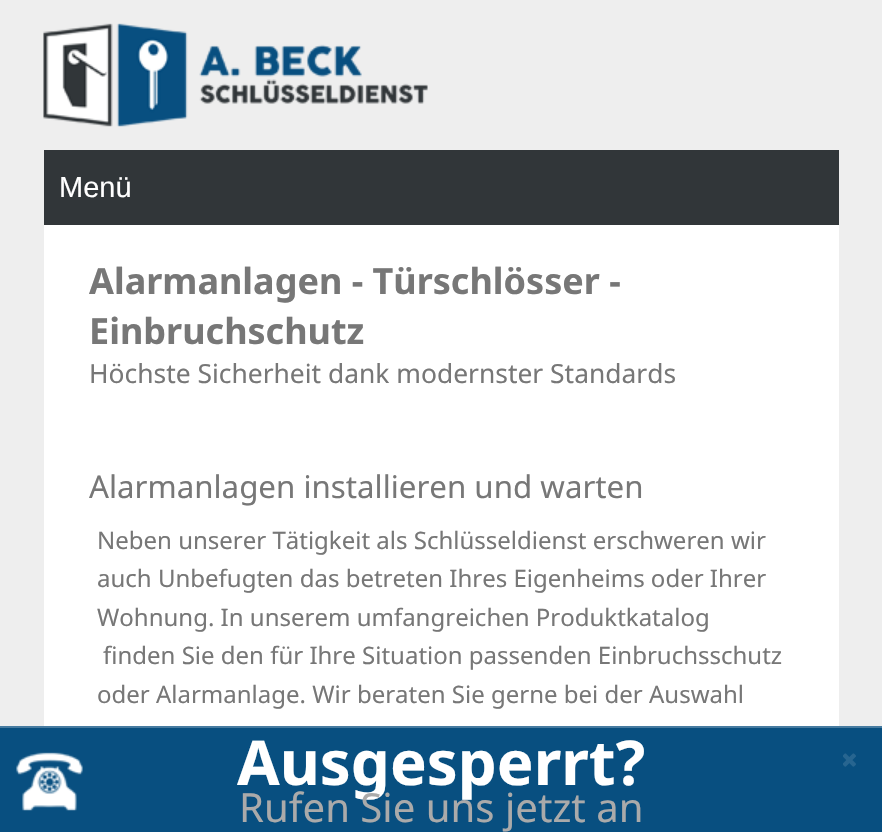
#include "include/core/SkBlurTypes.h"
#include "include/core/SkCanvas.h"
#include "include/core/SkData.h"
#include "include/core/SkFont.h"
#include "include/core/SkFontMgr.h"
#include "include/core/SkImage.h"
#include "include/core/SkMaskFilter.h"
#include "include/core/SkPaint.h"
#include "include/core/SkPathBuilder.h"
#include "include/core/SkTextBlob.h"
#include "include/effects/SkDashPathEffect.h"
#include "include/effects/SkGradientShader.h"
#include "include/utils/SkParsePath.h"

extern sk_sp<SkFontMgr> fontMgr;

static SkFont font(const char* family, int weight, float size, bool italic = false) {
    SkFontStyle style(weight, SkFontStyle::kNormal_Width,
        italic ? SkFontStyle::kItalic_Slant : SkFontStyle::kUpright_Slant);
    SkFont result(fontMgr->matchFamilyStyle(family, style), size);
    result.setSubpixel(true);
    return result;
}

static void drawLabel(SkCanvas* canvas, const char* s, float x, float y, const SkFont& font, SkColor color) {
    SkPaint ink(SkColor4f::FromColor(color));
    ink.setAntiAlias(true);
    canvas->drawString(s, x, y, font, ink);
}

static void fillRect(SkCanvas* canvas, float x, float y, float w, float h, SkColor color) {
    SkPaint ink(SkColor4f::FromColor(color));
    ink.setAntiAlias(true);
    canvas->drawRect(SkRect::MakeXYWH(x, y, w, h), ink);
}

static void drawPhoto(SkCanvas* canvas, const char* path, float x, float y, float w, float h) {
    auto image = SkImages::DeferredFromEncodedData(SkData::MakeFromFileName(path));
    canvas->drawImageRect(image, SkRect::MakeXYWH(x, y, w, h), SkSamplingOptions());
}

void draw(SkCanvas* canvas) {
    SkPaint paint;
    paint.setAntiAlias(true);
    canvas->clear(0xFFEEEEEE);
    drawPhoto(canvas, "assets/img1.png", 43, 23, 385, 104);
    fillRect(canvas, 44, 150, 795, 75, 0xFF313639);
    SkFont font1 = font("Liberation Sans", 400, 29);
    drawLabel(canvas, "Menü", 59, 197, font1, 0xFFFFFFFF);
    fillRect(canvas, 44, 225, 795, 501, 0xFFFFFFFF);
    SkFont font2 = font("Noto Sans", 700, 36);
    drawLabel(canvas, "Alarmanlagen - Türschlösser -", 89, 294, font2, 0xFF777777);
    drawLabel(canvas, "Einbruchschutz", 89, 344, font2, 0xFF777777);
    SkFont font3 = font("Noto Sans", 400, 26.4f);
    drawLabel(canvas, "Höchste Sicherheit dank modernster Standards", 89, 383, font3, 0xFF777777);
    SkFont font4 = font("Noto Sans", 400, 31.25f);
    drawLabel(canvas, "Alarmanlagen installieren und warten", 89, 498, font4, 0xFF777777);
    SkFont font5 = font("Noto Sans", 400, 24);
    drawLabel(canvas, "Neben unserer Tätigkeit als Schlüsseldienst erschweren wir", 97, 549, font5, 0xFF777777);
    drawLabel(canvas, "auch Unbefugten das betreten Ihres Eigenheims oder Ihrer", 97, 587, font5, 0xFF777777);
    drawLabel(canvas, "Wohnung. In unserem umfangreichen Produktkatalog", 97, 626, font5, 0xFF777777);
    drawLabel(canvas, "finden Sie den für Ihre Situation passenden Einbruchsschutz", 103, 664, font5, 0xFF777777);
    drawLabel(canvas, "oder Alarmanlage. Wir beraten Sie gerne bei der Auswahl", 97, 703, font5, 0xFF777777);
    fillRect(canvas, 0, 728, 882, 104, 0xFF084F80);
    drawPhoto(canvas, "assets/img2.png", 16, 752, 67, 59);
    fillRect(canvas, 0, 726, 882, 2, 0xFF467BA0);
    SkFont font6 = font("Noto Sans", 700, 61.75f);
    drawLabel(canvas, "Ausgesperrt?", 237, 785, font6, 0xFFFFFFFF);
    SkFont font7 = font("Noto Sans", 400, 40.1f);
    drawLabel(canvas, "Rufen Sie uns jetzt an", 239, 822, font7, 0xFFAAAAAA);
    drawPhoto(canvas, "assets/img3.png", 843, 753, 13, 14);
}
